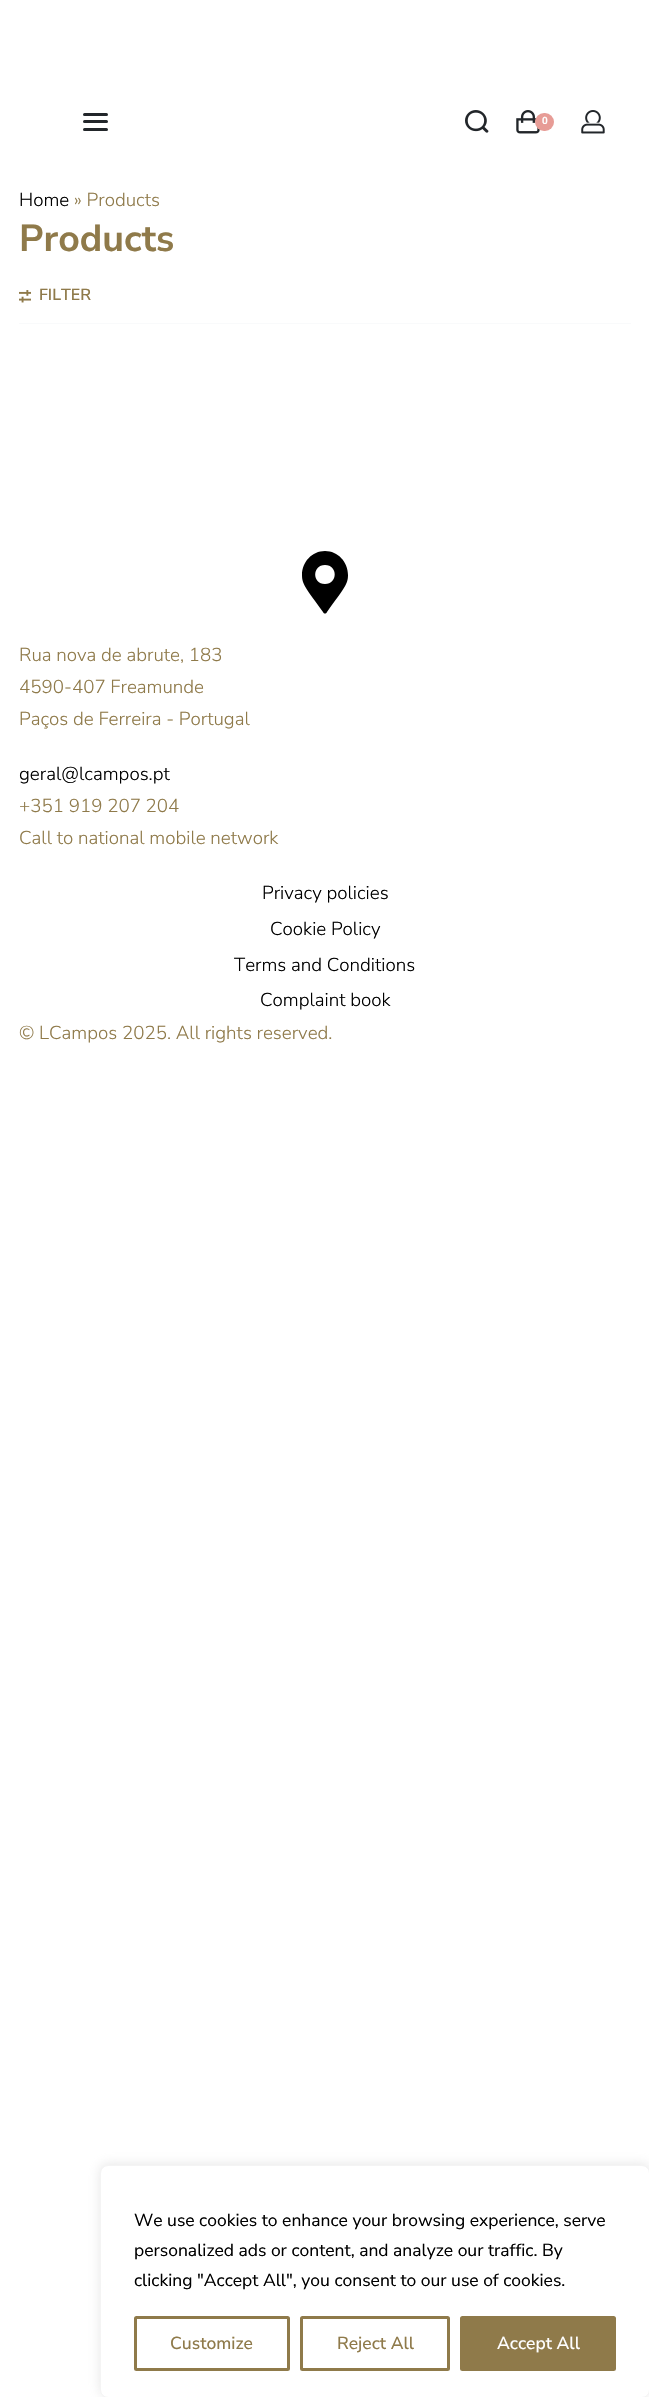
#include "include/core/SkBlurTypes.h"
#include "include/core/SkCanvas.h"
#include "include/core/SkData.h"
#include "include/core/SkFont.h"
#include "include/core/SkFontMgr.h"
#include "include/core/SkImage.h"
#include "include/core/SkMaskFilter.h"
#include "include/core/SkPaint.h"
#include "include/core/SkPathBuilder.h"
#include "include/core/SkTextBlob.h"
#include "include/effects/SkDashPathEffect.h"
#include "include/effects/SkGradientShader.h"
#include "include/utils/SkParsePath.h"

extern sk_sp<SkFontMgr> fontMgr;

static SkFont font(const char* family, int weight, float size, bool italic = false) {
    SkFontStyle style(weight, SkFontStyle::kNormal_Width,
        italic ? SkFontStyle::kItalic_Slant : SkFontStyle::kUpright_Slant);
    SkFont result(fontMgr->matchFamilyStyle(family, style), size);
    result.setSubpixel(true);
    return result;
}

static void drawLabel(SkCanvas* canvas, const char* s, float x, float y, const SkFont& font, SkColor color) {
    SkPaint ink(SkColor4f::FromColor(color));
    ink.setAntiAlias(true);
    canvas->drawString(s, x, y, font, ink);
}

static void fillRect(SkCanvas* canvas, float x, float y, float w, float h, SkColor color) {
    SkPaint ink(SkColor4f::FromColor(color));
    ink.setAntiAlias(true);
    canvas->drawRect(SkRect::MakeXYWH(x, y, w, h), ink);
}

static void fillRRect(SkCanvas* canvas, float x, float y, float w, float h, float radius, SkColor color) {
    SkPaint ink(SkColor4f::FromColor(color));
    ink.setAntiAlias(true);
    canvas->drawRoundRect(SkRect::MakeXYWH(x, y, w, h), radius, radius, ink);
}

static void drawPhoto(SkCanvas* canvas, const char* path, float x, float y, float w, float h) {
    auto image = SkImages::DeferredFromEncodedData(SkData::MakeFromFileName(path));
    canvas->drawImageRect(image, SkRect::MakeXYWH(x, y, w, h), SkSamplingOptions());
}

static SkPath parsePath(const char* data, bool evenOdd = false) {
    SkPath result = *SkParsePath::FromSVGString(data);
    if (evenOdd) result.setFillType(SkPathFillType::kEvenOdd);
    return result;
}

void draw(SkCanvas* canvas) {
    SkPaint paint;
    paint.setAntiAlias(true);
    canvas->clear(0xFFFFFFFF);
    fillRRect(canvas, 83, 113, 25, 3, 1.5f, 0xFF22262A);
    fillRRect(canvas, 83, 120, 25, 3, 1.5f, 0xFF22262A);
    fillRRect(canvas, 83, 128, 25, 3, 1.5f, 0xFF22262A);
    drawPhoto(canvas, "assets/img1.png", 465, 110, 24, 23);
    drawPhoto(canvas, "assets/img2.png", 516, 110, 24, 24);
    fillRRect(canvas, 535, 113, 19, 18, 9, 0xFFE79C96);
    SkFont font1 = font("Roboto", 600, 10);
    drawLabel(canvas, "0", 542, 124, font1, 0xFFFFFFFF);
    drawPhoto(canvas, "assets/img3.png", 581, 110, 24, 24);
    SkFont font2 = font("Nunito Sans", 300, 18.75f);
    drawLabel(canvas, "Home", 19, 206, font2, 0xFF000000);
    drawLabel(canvas, "» Products", 74, 206, font2, 0xFF8F7A4A);
    SkFont font3 = font("Nunito Sans", 700, 37.5f);
    drawLabel(canvas, "Products", 19, 251, font3, 0xFF8F7A4A);
    fillRect(canvas, 19, 323, 612, 1, 0xFFF9FAFB);
    drawPhoto(canvas, "assets/img4.png", 19, 290, 12, 13);
    SkFont font4 = font("Nunito Sans", 600, 16);
    drawLabel(canvas, "FILTER", 39, 300, font4, 0xFF8F7A4A);
    paint.setColor(0xFF000000);
    canvas->drawPath(parsePath("M323 612C305 587 302 584 302 575C302 562 312 551 325 551C338 551 348 562 348 575C348 584 345 587 327 612C326 614 324 614 323 612ZM325 584C338 584 338 565 325 565C312 565 312 584 325 584Z"), paint);
    drawLabel(canvas, "Rua nova de abrute, 183", 19, 661, font2, 0xFF8F7A4A);
    drawLabel(canvas, "4590-407 Freamunde", 19, 693, font2, 0xFF8F7A4A);
    drawLabel(canvas, "Paços de Ferreira - Portugal", 19, 725, font2, 0xFF8F7A4A);
    drawLabel(canvas, "geral@lcampos.pt", 19, 780, font2, 0xFF000000);
    drawLabel(canvas, "+351 919 207 204", 19, 812, font2, 0xFF8F7A4A);
    drawLabel(canvas, "Call to national mobile network", 19, 844, font2, 0xFF8F7A4A);
    drawLabel(canvas, "Privacy policies", 262, 899, font2, 0xFF000000);
    drawLabel(canvas, "Cookie Policy", 270, 935, font2, 0xFF000000);
    drawLabel(canvas, "Terms and Conditions", 234, 971, font2, 0xFF000000);
    drawLabel(canvas, "Complaint book", 260, 1006, font2, 0xFF000000);
    drawLabel(canvas, "© LCampos 2025. All rights reserved.", 19, 1039, font2, 0xFF8F7A4A);
    paint.setColor(0x4DACABAB);
    paint.setMaskFilter(SkMaskFilter::MakeBlur(kNormal_SkBlurStyle, 6));
    canvas->drawRoundRect(SkRect::MakeXYWH(100, 2164, 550, 232), 8, 8, paint);
    paint.setMaskFilter(nullptr);
    paint.setColor(0xFFFFFFFF);
    canvas->drawRoundRect(SkRect::MakeXYWH(100.5f, 2165.5f, 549, 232), 7.5f, 7.5f, paint);
    paint.setStroke(true);
    paint.setStrokeWidth(1);
    paint.setColor(0xFFF4F4F4);
    canvas->drawRoundRect(SkRect::MakeXYWH(100.5f, 2165.5f, 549, 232), 7.5f, 7.5f, paint);
    SkFont font5 = font("Nunito Sans", 400, 17.5f);
    drawLabel(canvas, "We use cookies to enhance your browsing experience, serve", 134, 2226, font5, 0xFF000000);
    drawLabel(canvas, "personalized ads or content, and analyze our traffic. By", 134, 2256, font5, 0xFF000000);
    drawLabel(canvas, "clicking \"Accept All\", you consent to our use of cookies.", 134, 2286, font5, 0xFF000000);
    paint.setStrokeWidth(3);
    paint.setColor(0xFF8F7A4A);
    canvas->drawRoundRect(SkRect::MakeXYWH(135.5f, 2317.5f, 153, 52), 1, 1, paint);
    SkFont font6 = font("Nunito Sans", 500, 17.5f);
    drawLabel(canvas, "Customize", 170, 2349, font6, 0xFF8F7A4A);
    canvas->drawRoundRect(SkRect::MakeXYWH(301.5f, 2317.5f, 147, 52), 1, 1, paint);
    drawLabel(canvas, "Reject All", 337, 2349, font6, 0xFF8F7A4A);
    paint.setStroke(false);
    canvas->drawRoundRect(SkRect::MakeXYWH(461.5f, 2317.5f, 153, 52), 1, 1, paint);
    paint.setStroke(true);
    canvas->drawRoundRect(SkRect::MakeXYWH(461.5f, 2317.5f, 153, 52), 1, 1, paint);
    drawLabel(canvas, "Accept All", 497, 2349, font6, 0xFFFFFFFF);
}
